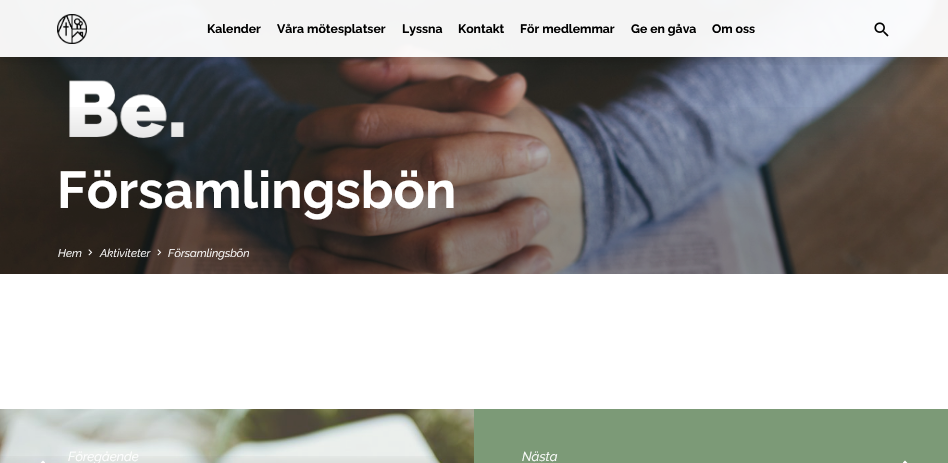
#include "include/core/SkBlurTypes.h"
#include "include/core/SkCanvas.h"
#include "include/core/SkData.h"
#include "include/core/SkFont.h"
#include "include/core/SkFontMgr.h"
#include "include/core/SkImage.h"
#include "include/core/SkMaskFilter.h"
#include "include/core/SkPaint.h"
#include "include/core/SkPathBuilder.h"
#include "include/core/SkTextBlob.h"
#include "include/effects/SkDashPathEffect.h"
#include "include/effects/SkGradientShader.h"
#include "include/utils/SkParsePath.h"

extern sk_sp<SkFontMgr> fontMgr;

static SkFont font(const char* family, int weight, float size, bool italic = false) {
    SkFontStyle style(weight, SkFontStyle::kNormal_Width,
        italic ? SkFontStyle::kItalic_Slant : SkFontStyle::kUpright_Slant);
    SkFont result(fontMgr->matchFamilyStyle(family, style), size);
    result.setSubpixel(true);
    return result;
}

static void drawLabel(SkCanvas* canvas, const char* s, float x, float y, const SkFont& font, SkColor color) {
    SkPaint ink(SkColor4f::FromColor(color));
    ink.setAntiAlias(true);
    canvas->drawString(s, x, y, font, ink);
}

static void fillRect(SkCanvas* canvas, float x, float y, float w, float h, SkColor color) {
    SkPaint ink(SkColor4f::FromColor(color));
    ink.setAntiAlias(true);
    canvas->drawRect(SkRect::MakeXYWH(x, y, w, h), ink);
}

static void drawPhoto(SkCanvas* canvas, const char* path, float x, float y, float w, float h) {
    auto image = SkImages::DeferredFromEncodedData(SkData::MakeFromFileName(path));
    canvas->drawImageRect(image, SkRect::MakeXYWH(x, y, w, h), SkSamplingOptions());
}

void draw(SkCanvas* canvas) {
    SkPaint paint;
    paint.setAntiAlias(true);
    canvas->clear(0xFFFFFFFF);
    drawPhoto(canvas, "assets/img3.png", 0, 0, 948, 274);
    canvas->save();
    canvas->clipRect(SkRect::MakeXYWH(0, 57, 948, 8));
    paint.setColor(0x24000000);
    paint.setMaskFilter(SkMaskFilter::MakeBlur(kNormal_SkBlurStyle, 6));
    canvas->drawRect(SkRect::MakeXYWH(0, 2, 948, 57), paint);
    paint.setMaskFilter(nullptr);
    canvas->restore();
    fillRect(canvas, 0, 0, 948, 57, 0xF2FFFFFF);
    drawPhoto(canvas, "assets/img1.png", 57, 14, 30, 30);
    SkFont font1 = font("Raleway", 700, 12.25f);
    drawLabel(canvas, "Kalender", 207, 33, font1, 0xFF000000);
    drawLabel(canvas, "Våra mötesplatser", 277, 33, font1, 0xFF000000);
    drawLabel(canvas, "Lyssna", 402, 33, font1, 0xFF000000);
    drawLabel(canvas, "Kontakt", 458, 33, font1, 0xFF000000);
    drawLabel(canvas, "För medlemmar", 520, 33, font1, 0xFF000000);
    drawLabel(canvas, "Ge en gåva", 631, 33, font1, 0xFF000000);
    drawLabel(canvas, "Om oss", 712, 33, font1, 0xFF000000);
    drawPhoto(canvas, "assets/img2.png", 874, 22, 15, 15);
    {
        const SkColor colors[] = {0x00000000, 0x00000000, 0x45000000, 0x45000000};
        const float stops[] = {0, 0.36f, 0.76f, 1};
        const SkPoint ends[] = {{474, 0}, {474, 274}};
        paint.setShader(SkGradientShader::MakeLinear(ends, colors, stops, 4, SkTileMode::kClamp));
        paint.setAlpha(255);
    }
    canvas->drawRect(SkRect::MakeXYWH(0, 107, 948, 167), paint);
    SkFont font2 = font("Raleway", 700, 51.75f);
    drawLabel(canvas, "Församlingsbön", 57, 208, font2, 0xFFFFFFFF);
    SkFont font3 = font("Raleway", 400, 11.25f, true);
    drawLabel(canvas, "Hem", 58, 257, font3, 0xFFFFFFFF);
    drawPhoto(canvas, "assets/img4.png", 88, 249, 5, 7);
    drawLabel(canvas, "Aktiviteter", 100, 257, font3, 0xFFFFFFFF);
    drawPhoto(canvas, "assets/img5.png", 157, 249, 5, 7);
    drawLabel(canvas, "Församlingsbön", 168, 257, font3, 0xFFFFFFFF);
    fillRect(canvas, 0, 409, 948, 54, 0xFF7C9A77);
    drawPhoto(canvas, "assets/img6.png", 0, 409, 474, 54);
    {
        const SkColor colors[] = {0x00060606, 0x00060606, 0x45060606, 0x45060606};
        const float stops[] = {0, 0.36f, 0.76f, 1};
        const SkPoint ends[] = {{239, 409}, {239, 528}};
        paint.setShader(SkGradientShader::MakeLinear(ends, colors, stops, 4, SkTileMode::kClamp));
        paint.setAlpha(255);
    }
    canvas->drawRect(SkRect::MakeXYWH(0, 456, 474, 7), paint);
    drawPhoto(canvas, "assets/img7.png", 40, 460, 5, 3);
    SkFont font4 = font("Raleway", 400, 13, true);
    drawLabel(canvas, "Föregående", 68, 461, font4, 0xFFFFFFFF);
    drawLabel(canvas, "Nästa", 522, 461, font4, 0xFFFFFFFF);
    drawPhoto(canvas, "assets/img8.png", 903, 460, 5, 3);
}
